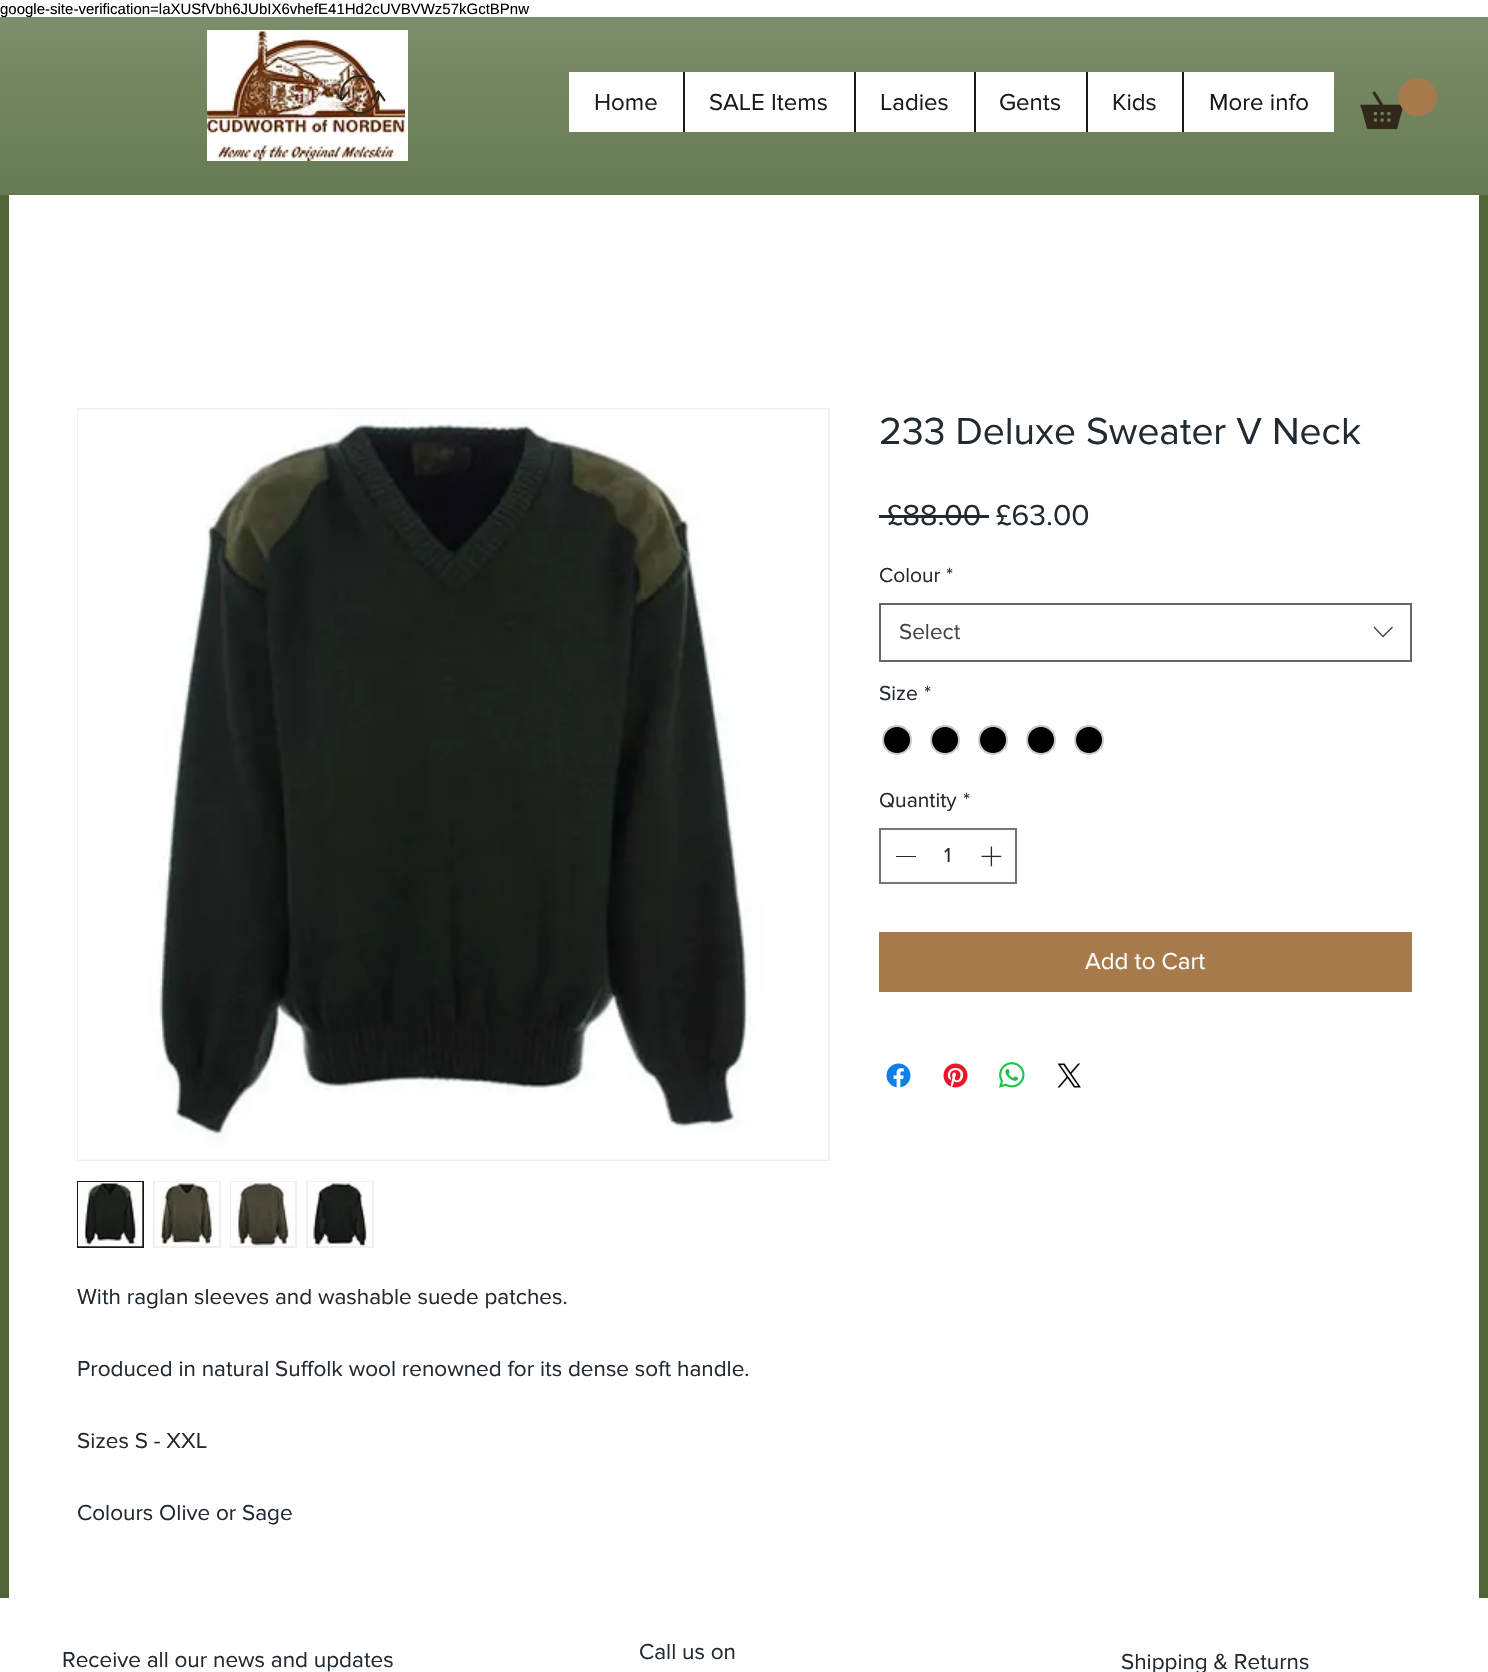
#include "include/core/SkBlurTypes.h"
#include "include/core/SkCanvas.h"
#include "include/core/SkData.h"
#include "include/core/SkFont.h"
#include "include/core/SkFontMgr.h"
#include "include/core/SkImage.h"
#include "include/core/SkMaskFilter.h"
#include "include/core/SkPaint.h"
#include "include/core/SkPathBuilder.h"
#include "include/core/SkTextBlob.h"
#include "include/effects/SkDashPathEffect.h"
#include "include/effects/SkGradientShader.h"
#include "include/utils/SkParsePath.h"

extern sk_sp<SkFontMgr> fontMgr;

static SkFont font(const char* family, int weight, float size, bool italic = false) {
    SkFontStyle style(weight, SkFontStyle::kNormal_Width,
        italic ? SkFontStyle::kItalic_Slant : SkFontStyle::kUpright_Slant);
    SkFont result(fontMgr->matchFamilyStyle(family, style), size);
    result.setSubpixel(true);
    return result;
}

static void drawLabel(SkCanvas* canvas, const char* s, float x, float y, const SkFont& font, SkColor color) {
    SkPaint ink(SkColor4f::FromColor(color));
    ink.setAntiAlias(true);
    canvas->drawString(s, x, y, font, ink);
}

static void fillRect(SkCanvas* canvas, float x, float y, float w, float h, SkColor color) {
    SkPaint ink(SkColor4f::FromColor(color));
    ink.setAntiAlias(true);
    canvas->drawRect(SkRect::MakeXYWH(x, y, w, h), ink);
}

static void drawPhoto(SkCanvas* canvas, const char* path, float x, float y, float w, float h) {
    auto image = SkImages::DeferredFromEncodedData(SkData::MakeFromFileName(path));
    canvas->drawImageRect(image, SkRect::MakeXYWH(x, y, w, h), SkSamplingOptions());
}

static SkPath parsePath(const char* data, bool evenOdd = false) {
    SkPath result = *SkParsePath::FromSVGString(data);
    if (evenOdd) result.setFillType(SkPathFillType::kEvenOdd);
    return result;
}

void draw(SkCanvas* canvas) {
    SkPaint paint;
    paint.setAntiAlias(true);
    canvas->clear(0xFFFFFFFF);
    SkFont font1 = font("Liberation Sans", 400, 15);
    drawLabel(canvas, "google-site-verification=laXUSfVbh6JUbIX6vhefE41Hd2cUVBVWz57kGctBPnw", 0, 14, font1, 0xFF000000);
    fillRect(canvas, 0, 17, 1488, 1581, 0xFF4E6636);
    fillRect(canvas, 9, 195, 1470, 1403, 0xFFFFFFFF);
    drawPhoto(canvas, "assets/img1.png", 0, 17, 1488, 179);
    drawPhoto(canvas, "assets/img2.png", 207, 30, 198, 131);
    drawPhoto(canvas, "assets/img3.png", 334, 75, 52, 39);
    fillRect(canvas, 405, 30, 3, 131, 0xFFFFFFFF);
    fillRect(canvas, 569, 72, 765, 60, 0xFFFFFFFF);
    SkFont font2 = font("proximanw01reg", 400, 24);
    drawLabel(canvas, "Home", 594, 110, font2, 0xFF1A1A1A);
    fillRect(canvas, 683, 72, 2, 60, 0xFF1A1A1A);
    drawLabel(canvas, "SALE Items", 709, 110, font2, 0xFF1A1A1A);
    fillRect(canvas, 854, 72, 2, 60, 0xFF1A1A1A);
    drawLabel(canvas, "Ladies", 880, 110, font2, 0xFF1A1A1A);
    fillRect(canvas, 974, 72, 2, 60, 0xFF1A1A1A);
    drawLabel(canvas, "Gents", 999, 110, font2, 0xFF1A1A1A);
    fillRect(canvas, 1086, 72, 2, 60, 0xFF1A1A1A);
    drawLabel(canvas, "Kids", 1112, 110, font2, 0xFF1A1A1A);
    fillRect(canvas, 1182, 72, 2, 60, 0xFF1A1A1A);
    drawLabel(canvas, "More info", 1209, 110, font2, 0xFF1A1A1A);
    drawPhoto(canvas, "assets/img4.png", 1360, 78, 77, 52);
    SkFont font3 = font("proximanw01reg", 400, 39);
    drawLabel(canvas, "233 Deluxe Sweater V Neck", 879, 444, font3, 0xFF222A31);
    SkFont font4 = font("proximanw01reg", 400, 30);
    drawLabel(canvas, "£88.00", 887, 525, font4, 0xFF222A31);
    fillRect(canvas, 879, 515, 110, 3, 0xFF222A31);
    drawLabel(canvas, "£63.00", 996, 525, font4, 0xFF222A31);
    SkFont font5 = font("proximanw01reg", 400, 21);
    drawLabel(canvas, "Colour", 879, 582, font5, 0xFF222A31);
    drawLabel(canvas, "*", 946, 582, font5, 0xFF222A31);
    paint.setStroke(true);
    paint.setStrokeWidth(2);
    paint.setColor(0xFF666666);
    canvas->drawRect(SkRect::MakeXYWH(880, 604, 531, 57), paint);
    SkFont font6 = font("proximanw01reg", 400, 22.5f);
    drawLabel(canvas, "Select", 899, 639, font6, 0xFF444444);
    paint.setStroke(false);
    paint.setColor(0xFF444444);
    canvas->drawPath(parsePath("M1392 626.5L1393 627.5L1383 637.5L1373.5 627.5L1374.5 626.5L1383 635.5Z", true), paint);
    drawLabel(canvas, "Size", 879, 700, font5, 0xFF222A31);
    drawLabel(canvas, "*", 924, 700, font5, 0xFF222A31);
    paint.setColor(0xFF000000);
    canvas->drawCircle(897, 740, 14, paint);
    paint.setStroke(true);
    paint.setColor(0xFFC9C9C9);
    canvas->drawCircle(897, 740, 14, paint);
    paint.setStroke(false);
    paint.setColor(0xFF000000);
    canvas->drawCircle(945, 740, 14, paint);
    paint.setStroke(true);
    paint.setColor(0xFFC9C9C9);
    canvas->drawCircle(945, 740, 14, paint);
    paint.setStroke(false);
    paint.setColor(0xFF000000);
    canvas->drawCircle(993, 740, 14, paint);
    paint.setStroke(true);
    paint.setColor(0xFFC9C9C9);
    canvas->drawCircle(993, 740, 14, paint);
    paint.setStroke(false);
    paint.setColor(0xFF000000);
    canvas->drawCircle(1041, 740, 14, paint);
    paint.setStroke(true);
    paint.setColor(0xFFC9C9C9);
    canvas->drawCircle(1041, 740, 14, paint);
    paint.setStroke(false);
    paint.setColor(0xFF000000);
    canvas->drawCircle(1089, 740, 14, paint);
    paint.setStroke(true);
    paint.setColor(0xFFC9C9C9);
    canvas->drawCircle(1089, 740, 14, paint);
    drawLabel(canvas, "Quantity", 879, 807, font5, 0xFF222A31);
    drawLabel(canvas, "*", 963, 807, font5, 0xFF222A31);
    paint.setColor(0xFF767676);
    canvas->drawRect(SkRect::MakeXYWH(880, 829, 136, 54), paint);
    fillRect(canvas, 896, 856, 20, 1, 0xFF222A31);
    drawLabel(canvas, "1", 944, 862, font5, 0xFF222A31);
    drawPhoto(canvas, "assets/img5.png", 981, 846, 21, 21);
    fillRect(canvas, 879, 932, 533, 60, 0xFFA67A4B);
    drawLabel(canvas, "Add to Cart", 1085, 969, font2, 0xFFFFFFFF);
    drawPhoto(canvas, "assets/img6.png", 886, 1063, 25, 25);
    drawPhoto(canvas, "assets/img7.png", 943, 1063, 25, 25);
    drawPhoto(canvas, "assets/img8.png", 999, 1062, 26, 26);
    drawPhoto(canvas, "assets/img9.png", 1057, 1063, 24, 25);
    paint.setColor(0xFFF0F0F0);
    canvas->drawRect(SkRect::MakeXYWH(78, 409, 751, 751), paint);
    drawPhoto(canvas, "assets/img10.png", 78, 409, 750, 751);
    paint.setColor(0xFF1A1A1A);
    canvas->drawRect(SkRect::MakeXYWH(78, 1182, 65, 65), paint);
    drawPhoto(canvas, "assets/img11.png", 78, 1182, 65, 65);
    fillRect(canvas, 153, 1181, 68, 67, 0xFFF0F0F0);
    drawPhoto(canvas, "assets/img12.png", 155, 1182, 64, 64);
    fillRect(canvas, 230, 1181, 67, 67, 0xFFF0F0F0);
    drawPhoto(canvas, "assets/img13.png", 231, 1182, 64, 64);
    fillRect(canvas, 306, 1181, 68, 67, 0xFFF0F0F0);
    drawPhoto(canvas, "assets/img14.png", 308, 1182, 64, 64);
    drawLabel(canvas, "With raglan sleeves and washable suede patches.", 77, 1304, font6, 0xFF222A31);
    drawLabel(canvas, "Produced in natural Suffolk wool renowned for its dense soft handle.", 77, 1376, font6, 0xFF222A31);
    drawLabel(canvas, "Sizes S - XXL", 77, 1448, font6, 0xFF222A31);
    drawLabel(canvas, "Colours Olive or Sage", 77, 1520, font6, 0xFF222A31);
    drawLabel(canvas, "Receive all our news and updates", 62, 1667, font6, 0xFF222A31);
    drawLabel(canvas, "Call us on", 639, 1659, font6, 0xFF222A31);
    drawLabel(canvas, "Shipping & Returns", 1121, 1669, font6, 0xFF222A31);
}
